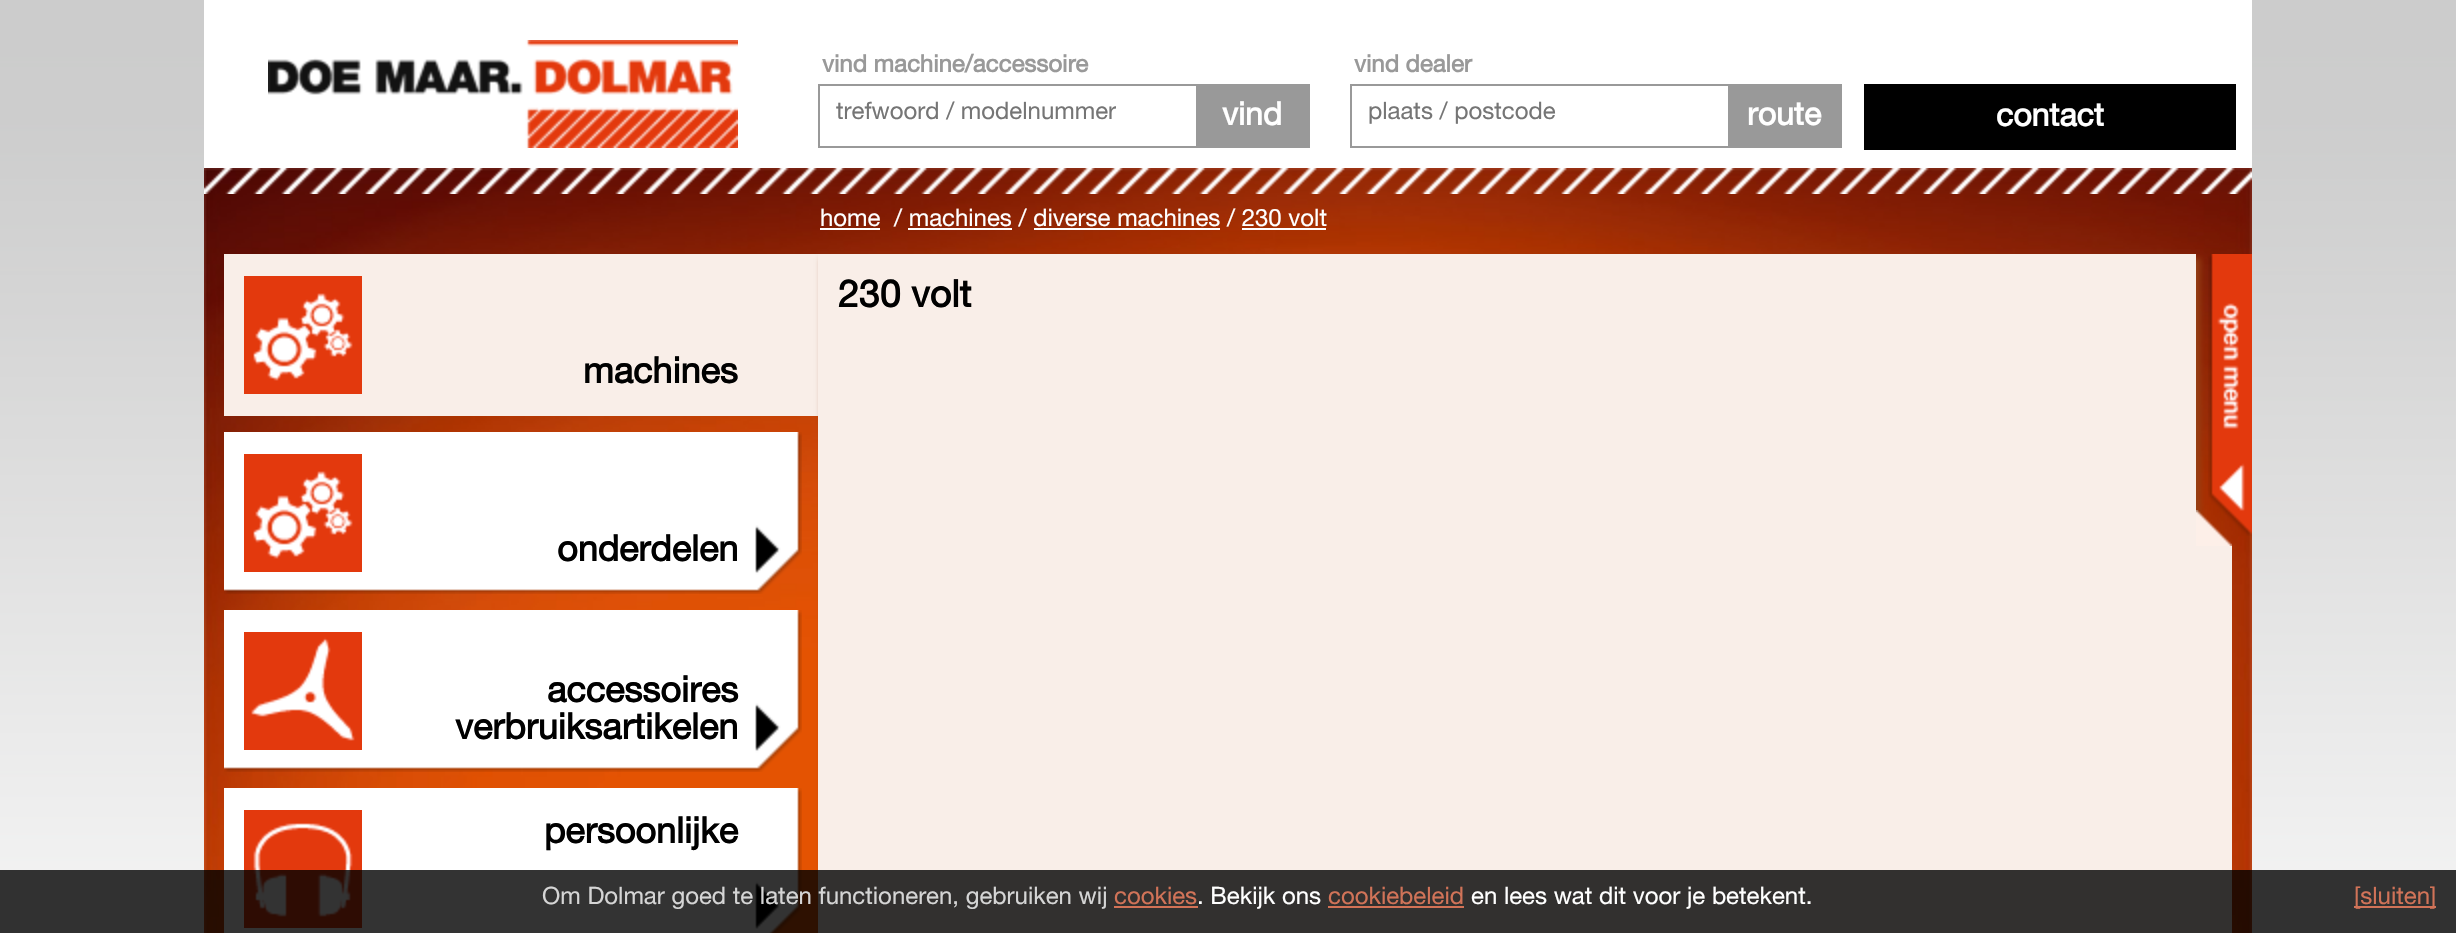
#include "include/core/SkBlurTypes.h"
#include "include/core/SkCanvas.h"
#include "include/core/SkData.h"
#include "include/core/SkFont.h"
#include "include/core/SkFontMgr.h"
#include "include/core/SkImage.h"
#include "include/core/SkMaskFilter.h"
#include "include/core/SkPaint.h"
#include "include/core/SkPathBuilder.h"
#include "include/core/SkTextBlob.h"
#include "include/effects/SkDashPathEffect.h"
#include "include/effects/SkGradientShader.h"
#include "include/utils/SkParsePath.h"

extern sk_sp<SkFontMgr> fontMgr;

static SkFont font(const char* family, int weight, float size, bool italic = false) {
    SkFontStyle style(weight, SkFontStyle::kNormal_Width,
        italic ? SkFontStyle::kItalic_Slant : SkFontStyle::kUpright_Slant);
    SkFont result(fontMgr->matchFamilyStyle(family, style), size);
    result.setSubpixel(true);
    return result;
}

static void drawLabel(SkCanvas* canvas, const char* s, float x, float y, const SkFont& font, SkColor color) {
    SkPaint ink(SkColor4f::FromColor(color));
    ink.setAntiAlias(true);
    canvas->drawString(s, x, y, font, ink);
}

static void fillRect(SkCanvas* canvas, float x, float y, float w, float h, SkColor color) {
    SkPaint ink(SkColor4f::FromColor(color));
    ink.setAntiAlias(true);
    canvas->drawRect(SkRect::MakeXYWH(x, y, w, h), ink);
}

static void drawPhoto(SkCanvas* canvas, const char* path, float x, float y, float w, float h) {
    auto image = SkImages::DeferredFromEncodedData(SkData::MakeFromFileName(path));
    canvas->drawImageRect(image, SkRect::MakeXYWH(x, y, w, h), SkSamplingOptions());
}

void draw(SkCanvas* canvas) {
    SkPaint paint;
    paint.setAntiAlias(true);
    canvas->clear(0xFFFFFFFF);
    drawPhoto(canvas, "assets/img1.png", 0, 0, 2456, 933);
    fillRect(canvas, 204, 0, 2048, 168, 0xFFFFFFFF);
    drawPhoto(canvas, "assets/img2.png", 268, 40, 470, 108);
    SkFont font1 = font("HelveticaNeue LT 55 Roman", 700, 24);
    drawLabel(canvas, "vind machine/accessoire", 822, 72, font1, 0xFF999999);
    paint.setStroke(true);
    paint.setStrokeWidth(2);
    paint.setColor(0xFF999999);
    canvas->drawRect(SkRect::MakeXYWH(819, 85, 490, 62), paint);
    SkFont font2 = font("HelveticaNeue LT 55 Roman", 400, 24);
    drawLabel(canvas, "trefwoord / modelnummer", 836, 119, font2, 0xFF757575);
    fillRect(canvas, 1196, 86, 112, 60, 0xFF999999);
    SkFont font3 = font("HelveticaNeue LT 55 Roman", 700, 32);
    drawLabel(canvas, "vind", 1222, 125, font3, 0xFFFFFFFF);
    drawLabel(canvas, "vind dealer", 1354, 72, font1, 0xFF999999);
    canvas->drawRect(SkRect::MakeXYWH(1351, 85, 490, 62), paint);
    drawLabel(canvas, "plaats / postcode", 1368, 119, font2, 0xFF757575);
    fillRect(canvas, 1728, 86, 112, 60, 0xFF999999);
    drawLabel(canvas, "route", 1747, 125, font3, 0xFFFFFFFF);
    fillRect(canvas, 1864, 84, 372, 66, 0xFF000000);
    drawLabel(canvas, "contact", 1996, 126, font3, 0xFFFFFFFF);
    drawPhoto(canvas, "assets/img3.png", 204, 168, 2048, 765);
    drawPhoto(canvas, "assets/img4.png", 204, 168, 2048, 26);
    drawLabel(canvas, "home", 820, 226, font2, 0xFFFFFFFF);
    fillRect(canvas, 820, 228, 60, 2, 0xFFFFFFFF);
    drawLabel(canvas, "/ machines / diverse machines / 230 volt", 894, 226, font2, 0xFFFFFFFF);
    fillRect(canvas, 908, 228, 104, 2, 0xFFFFFFFF);
    fillRect(canvas, 1034, 228, 186, 2, 0xFFFFFFFF);
    fillRect(canvas, 1242, 228, 84, 2, 0xFFFFFFFF);
    fillRect(canvas, 224, 254, 594, 162, 0xFFF9EEE8);
    paint.setStroke(false);
    paint.setColor(0xFF953F13);
    paint.setMaskFilter(SkMaskFilter::MakeBlur(kNormal_SkBlurStyle, 3));
    canvas->drawRect(SkRect::MakeXYWH(822, 258, 1378, 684), paint);
    paint.setMaskFilter(nullptr);
    fillRect(canvas, 818, 254, 1378, 679, 0xFFF9EEE8);
    SkFont font4 = font("HelveticaNeue LT 55 Roman", 700, 37.5f);
    drawLabel(canvas, "230 volt", 838, 307, font4, 0xFF000000);
    drawPhoto(canvas, "assets/img5.png", 244, 276, 118, 118);
    SkFont font5 = font("HelveticaNeue LT 55 Roman", 700, 36);
    drawLabel(canvas, "machines", 583, 383, font5, 0xFF000000);
    drawPhoto(canvas, "assets/img6.png", 224, 432, 578, 162);
    drawPhoto(canvas, "assets/img5.png", 244, 454, 118, 118);
    drawLabel(canvas, "onderdelen", 557, 561, font5, 0xFF000000);
    drawPhoto(canvas, "assets/img7.png", 224, 610, 578, 162);
    drawPhoto(canvas, "assets/img8.png", 244, 632, 118, 118);
    drawLabel(canvas, "accessoires", 547, 702, font5, 0xFF000000);
    drawLabel(canvas, "verbruiksartikelen", 455, 739, font5, 0xFF000000);
    drawPhoto(canvas, "assets/img9.png", 224, 788, 578, 145);
    drawPhoto(canvas, "assets/img10.png", 244, 810, 118, 118);
    drawLabel(canvas, "persoonlijke", 544, 843, font5, 0xFF000000);
    drawPhoto(canvas, "assets/img11.png", 2196, 510, 36, 36);
    fillRect(canvas, 2196, 546, 36, 387, 0xFFF9EEE8);
    drawPhoto(canvas, "assets/img12.png", 2208, 254, 44, 282);
    fillRect(canvas, 0, 870, 2456, 63, 0xCC000000);
    drawLabel(canvas, "Om Dolmar goed te laten functioneren, gebruiken wij", 542, 904, font2, 0xFFD5D5D5);
    drawLabel(canvas, "cookies", 1114, 904, font2, 0xFFD17358);
    fillRect(canvas, 1114, 906, 84, 2, 0xFFD37256);
    drawLabel(canvas, ". Bekijk ons", 1197, 904, font2, 0xFFFFFFFF);
    drawLabel(canvas, "cookiebeleid", 1328, 904, font2, 0xFFD17358);
    fillRect(canvas, 1328, 906, 136, 2, 0xFFD37256);
    drawLabel(canvas, "en lees wat dit voor je betekent.", 1471, 904, font2, 0xFFFFFFFF);
    fillRect(canvas, 2354, 906, 82, 2, 0xFFD17358);
    drawLabel(canvas, "[sluiten]", 2354, 904, font2, 0xFFD17358);
}
